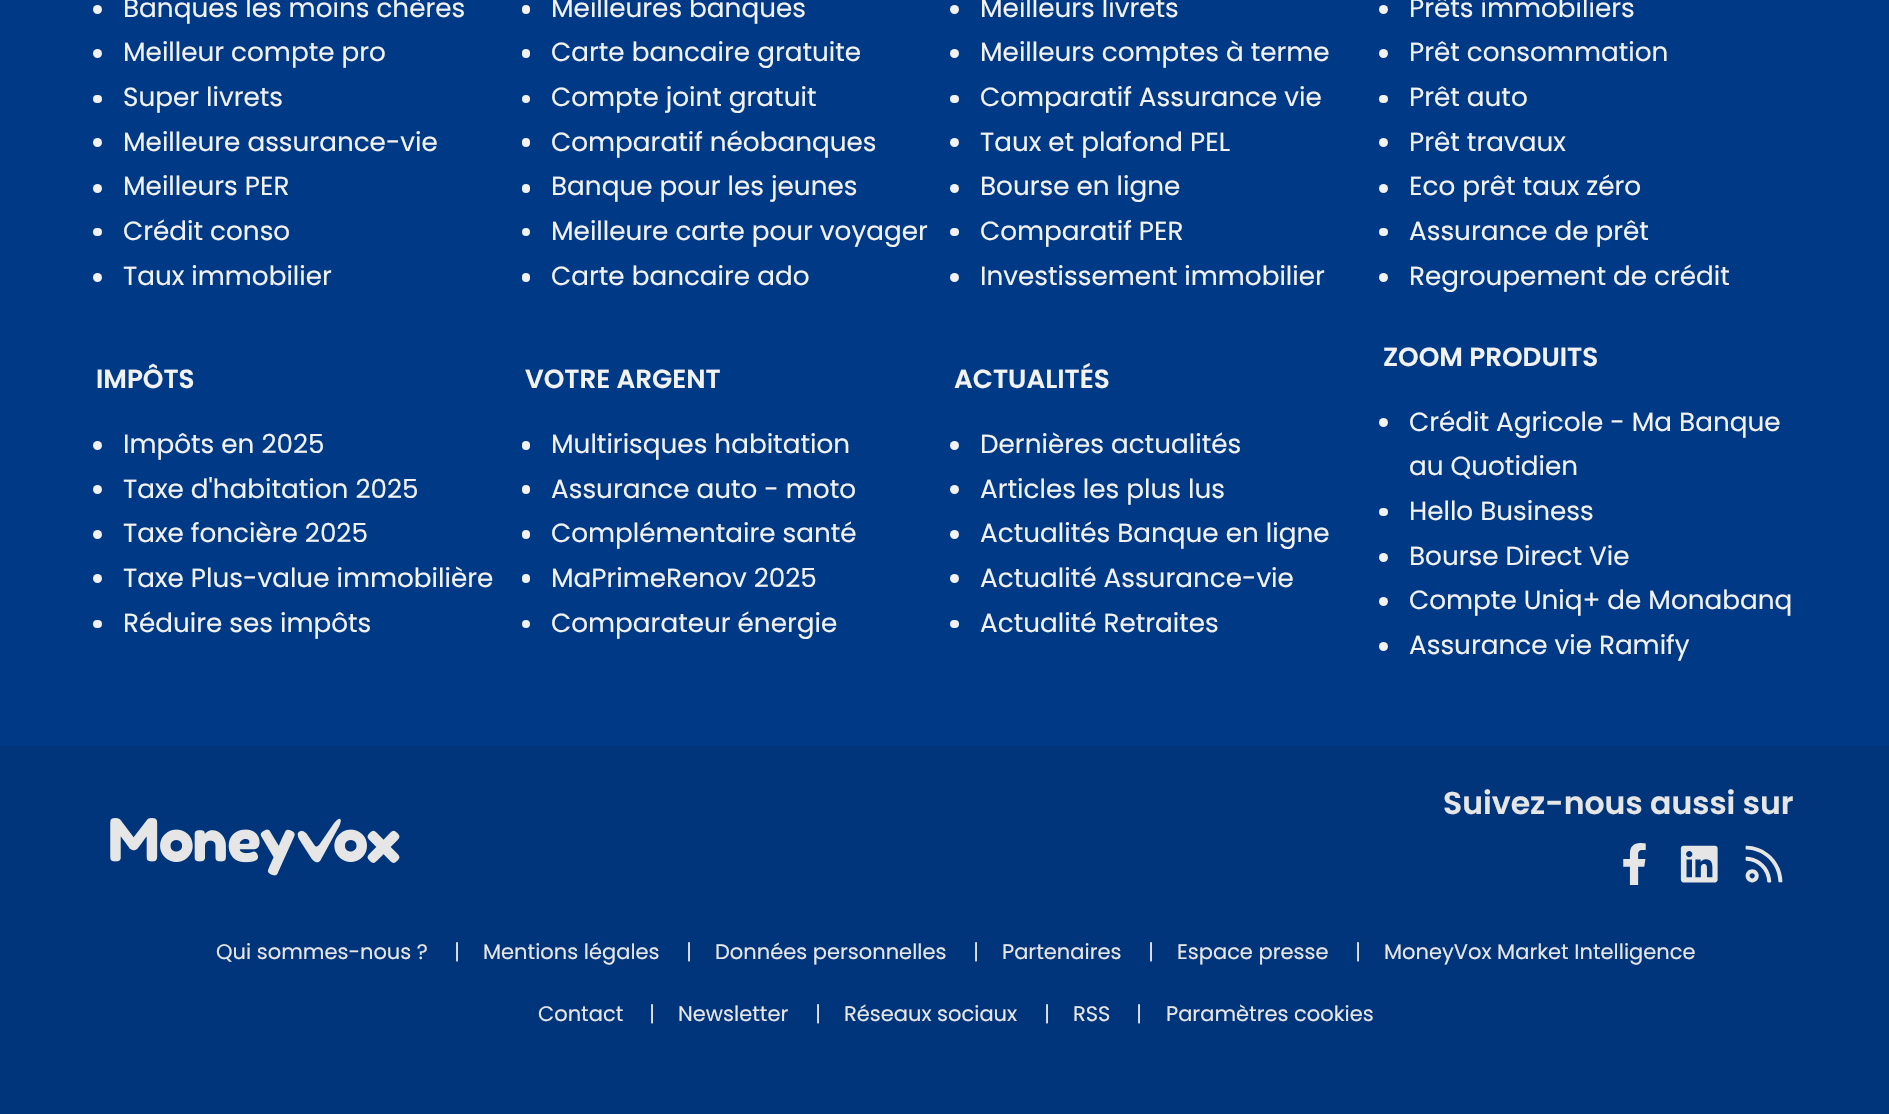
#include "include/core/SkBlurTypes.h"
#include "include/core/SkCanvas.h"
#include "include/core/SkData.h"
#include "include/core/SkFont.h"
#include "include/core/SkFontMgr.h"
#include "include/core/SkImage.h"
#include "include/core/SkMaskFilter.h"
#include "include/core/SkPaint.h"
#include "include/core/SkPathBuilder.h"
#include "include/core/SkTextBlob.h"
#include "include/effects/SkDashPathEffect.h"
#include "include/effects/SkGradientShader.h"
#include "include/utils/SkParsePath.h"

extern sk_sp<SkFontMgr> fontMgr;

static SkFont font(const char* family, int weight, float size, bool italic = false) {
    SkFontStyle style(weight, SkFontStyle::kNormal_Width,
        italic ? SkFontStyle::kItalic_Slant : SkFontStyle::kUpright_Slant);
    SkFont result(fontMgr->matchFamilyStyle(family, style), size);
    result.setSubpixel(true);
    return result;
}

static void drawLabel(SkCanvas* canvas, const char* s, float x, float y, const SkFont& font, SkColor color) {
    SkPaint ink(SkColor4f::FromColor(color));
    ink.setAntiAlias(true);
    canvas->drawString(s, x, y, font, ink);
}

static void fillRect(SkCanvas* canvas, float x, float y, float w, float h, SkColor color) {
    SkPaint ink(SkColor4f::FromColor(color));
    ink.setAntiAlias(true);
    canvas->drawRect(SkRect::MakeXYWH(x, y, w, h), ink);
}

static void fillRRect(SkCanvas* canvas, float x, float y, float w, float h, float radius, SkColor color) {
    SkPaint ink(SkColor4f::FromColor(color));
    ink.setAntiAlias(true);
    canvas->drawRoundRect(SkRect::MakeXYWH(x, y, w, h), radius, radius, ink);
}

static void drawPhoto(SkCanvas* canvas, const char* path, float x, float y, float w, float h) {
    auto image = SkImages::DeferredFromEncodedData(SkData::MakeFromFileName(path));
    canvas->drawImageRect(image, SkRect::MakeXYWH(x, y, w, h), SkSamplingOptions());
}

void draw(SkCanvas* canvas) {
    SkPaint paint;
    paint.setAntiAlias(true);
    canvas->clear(0xFF003985);
    paint.setColor(0xFFF2F2F2);
    canvas->drawCircle(97.5f, 9.5f, 4.5f, paint);
    SkFont font1 = font("Poppins", 400, 26.25f);
    drawLabel(canvas, "Banques les moins chères", 123, 17, font1, 0xFFF2F2F2);
    canvas->drawCircle(97.5f, 53.5f, 4.5f, paint);
    drawLabel(canvas, "Meilleur compte pro", 123, 61, font1, 0xFFF2F2F2);
    fillRRect(canvas, 93, 95, 9, 8, 4, 0xFFF2F2F2);
    drawLabel(canvas, "Super livrets", 123, 106, font1, 0xFFF2F2F2);
    canvas->drawCircle(97.5f, 142.5f, 4.5f, paint);
    drawLabel(canvas, "Meilleure assurance-vie", 123, 151, font1, 0xFFF2F2F2);
    canvas->drawCircle(97.5f, 188.5f, 4.5f, paint);
    drawLabel(canvas, "Meilleurs PER", 123, 195, font1, 0xFFF2F2F2);
    fillRRect(canvas, 93, 228, 9, 8, 4, 0xFFF2F2F2);
    drawLabel(canvas, "Crédit conso", 123, 240, font1, 0xFFF2F2F2);
    canvas->drawCircle(97.5f, 277.5f, 4.5f, paint);
    drawLabel(canvas, "Taux immobilier", 123, 285, font1, 0xFFF2F2F2);
    fillRRect(canvas, 522, 5, 8, 9, 4, 0xFFF2F2F2);
    drawLabel(canvas, "Meilleures banques", 551, 17, font1, 0xFFF2F2F2);
    fillRRect(canvas, 522, 49, 8, 9, 4, 0xFFF2F2F2);
    drawLabel(canvas, "Carte bancaire gratuite", 551, 61, font1, 0xFFF2F2F2);
    canvas->drawCircle(526, 99, 4, paint);
    drawLabel(canvas, "Compte joint gratuit", 551, 106, font1, 0xFFF2F2F2);
    fillRRect(canvas, 522, 138, 8, 9, 4, 0xFFF2F2F2);
    drawLabel(canvas, "Comparatif néobanques", 551, 151, font1, 0xFFF2F2F2);
    fillRRect(canvas, 522, 184, 8, 9, 4, 0xFFF2F2F2);
    drawLabel(canvas, "Banque pour les jeunes", 551, 195, font1, 0xFFF2F2F2);
    canvas->drawCircle(526, 232, 4, paint);
    drawLabel(canvas, "Meilleure carte pour voyager", 551, 240, font1, 0xFFF2F2F2);
    fillRRect(canvas, 522, 273, 8, 9, 4, 0xFFF2F2F2);
    drawLabel(canvas, "Carte bancaire ado", 551, 285, font1, 0xFFF2F2F2);
    canvas->drawCircle(954.5f, 9.5f, 4.5f, paint);
    drawLabel(canvas, "Meilleurs livrets", 980, 17, font1, 0xFFF2F2F2);
    canvas->drawCircle(954.5f, 53.5f, 4.5f, paint);
    drawLabel(canvas, "Meilleurs comptes à terme", 980, 61, font1, 0xFFF2F2F2);
    fillRRect(canvas, 950, 95, 9, 8, 4, 0xFFF2F2F2);
    drawLabel(canvas, "Comparatif Assurance vie", 980, 106, font1, 0xFFF2F2F2);
    canvas->drawCircle(954.5f, 142.5f, 4.5f, paint);
    drawLabel(canvas, "Taux et plafond PEL", 980, 151, font1, 0xFFF2F2F2);
    canvas->drawCircle(954.5f, 188.5f, 4.5f, paint);
    drawLabel(canvas, "Bourse en ligne", 980, 195, font1, 0xFFF2F2F2);
    fillRRect(canvas, 950, 228, 9, 8, 4, 0xFFF2F2F2);
    drawLabel(canvas, "Comparatif PER", 980, 240, font1, 0xFFF2F2F2);
    canvas->drawCircle(954.5f, 277.5f, 4.5f, paint);
    drawLabel(canvas, "Investissement immobilier", 980, 285, font1, 0xFFF2F2F2);
    canvas->drawCircle(1383.5f, 9.5f, 4.5f, paint);
    drawLabel(canvas, "Prêts immobiliers", 1409, 17, font1, 0xFFF2F2F2);
    canvas->drawCircle(1383.5f, 53.5f, 4.5f, paint);
    drawLabel(canvas, "Prêt consommation", 1409, 61, font1, 0xFFF2F2F2);
    fillRRect(canvas, 1379, 95, 9, 8, 4, 0xFFF2F2F2);
    drawLabel(canvas, "Prêt auto", 1409, 106, font1, 0xFFF2F2F2);
    canvas->drawCircle(1383.5f, 142.5f, 4.5f, paint);
    drawLabel(canvas, "Prêt travaux", 1409, 151, font1, 0xFFF2F2F2);
    canvas->drawCircle(1383.5f, 188.5f, 4.5f, paint);
    drawLabel(canvas, "Eco prêt taux zéro", 1409, 195, font1, 0xFFF2F2F2);
    fillRRect(canvas, 1379, 228, 9, 8, 4, 0xFFF2F2F2);
    drawLabel(canvas, "Assurance de prêt", 1409, 240, font1, 0xFFF2F2F2);
    canvas->drawCircle(1383.5f, 277.5f, 4.5f, paint);
    drawLabel(canvas, "Regroupement de crédit", 1409, 285, font1, 0xFFF2F2F2);
    SkFont font2 = font("Poppins", 600, 26.25f);
    drawLabel(canvas, "IMPÔTS", 96, 388, font2, 0xFFF2F2F2);
    canvas->drawCircle(97.5f, 445.5f, 4.5f, paint);
    drawLabel(canvas, "Impôts en 2025", 123, 453, font1, 0xFFF2F2F2);
    canvas->drawCircle(97.5f, 489.5f, 4.5f, paint);
    drawLabel(canvas, "Taxe d'habitation 2025", 123, 498, font1, 0xFFF2F2F2);
    canvas->drawCircle(97.5f, 534.5f, 4.5f, paint);
    drawLabel(canvas, "Taxe foncière 2025", 123, 542, font1, 0xFFF2F2F2);
    canvas->drawCircle(97.5f, 578.5f, 4.5f, paint);
    drawLabel(canvas, "Taxe Plus-value immobilière", 123, 587, font1, 0xFFF2F2F2);
    fillRRect(canvas, 93, 620, 9, 8, 4, 0xFFF2F2F2);
    drawLabel(canvas, "Réduire ses impôts", 123, 632, font1, 0xFFF2F2F2);
    drawLabel(canvas, "VOTRE ARGENT", 525, 388, font2, 0xFFF2F2F2);
    fillRRect(canvas, 522, 441, 8, 9, 4, 0xFFF2F2F2);
    drawLabel(canvas, "Multirisques habitation", 551, 453, font1, 0xFFF2F2F2);
    fillRRect(canvas, 522, 485, 8, 9, 4, 0xFFF2F2F2);
    drawLabel(canvas, "Assurance auto - moto", 551, 498, font1, 0xFFF2F2F2);
    fillRRect(canvas, 522, 530, 8, 9, 4, 0xFFF2F2F2);
    drawLabel(canvas, "Complémentaire santé", 551, 542, font1, 0xFFF2F2F2);
    fillRRect(canvas, 522, 574, 8, 9, 4, 0xFFF2F2F2);
    drawLabel(canvas, "MaPrimeRenov 2025", 551, 587, font1, 0xFFF2F2F2);
    canvas->drawCircle(526, 624, 4, paint);
    drawLabel(canvas, "Comparateur énergie", 551, 632, font1, 0xFFF2F2F2);
    drawLabel(canvas, "ACTUALITÉS", 954, 388, font2, 0xFFF2F2F2);
    canvas->drawCircle(954.5f, 445.5f, 4.5f, paint);
    drawLabel(canvas, "Dernières actualités", 980, 453, font1, 0xFFF2F2F2);
    canvas->drawCircle(954.5f, 489.5f, 4.5f, paint);
    drawLabel(canvas, "Articles les plus lus", 980, 498, font1, 0xFFF2F2F2);
    canvas->drawCircle(954.5f, 534.5f, 4.5f, paint);
    drawLabel(canvas, "Actualités Banque en ligne", 980, 542, font1, 0xFFF2F2F2);
    canvas->drawCircle(954.5f, 578.5f, 4.5f, paint);
    drawLabel(canvas, "Actualité Assurance-vie", 980, 587, font1, 0xFFF2F2F2);
    fillRRect(canvas, 950, 620, 9, 8, 4, 0xFFF2F2F2);
    drawLabel(canvas, "Actualité Retraites", 980, 632, font1, 0xFFF2F2F2);
    drawLabel(canvas, "ZOOM PRODUITS", 1383, 366, font2, 0xFFF2F2F2);
    canvas->drawCircle(1383.5f, 422.5f, 4.5f, paint);
    drawLabel(canvas, "Crédit Agricole - Ma Banque", 1409, 431, font1, 0xFFF2F2F2);
    drawLabel(canvas, "au Quotidien", 1409, 475, font1, 0xFFF2F2F2);
    fillRRect(canvas, 1379, 508, 9, 8, 4, 0xFFF2F2F2);
    drawLabel(canvas, "Hello Business", 1409, 520, font1, 0xFFF2F2F2);
    canvas->drawCircle(1383.5f, 557.5f, 4.5f, paint);
    drawLabel(canvas, "Bourse Direct Vie", 1409, 565, font1, 0xFFF2F2F2);
    canvas->drawCircle(1383.5f, 601.5f, 4.5f, paint);
    drawLabel(canvas, "Compte Uniq+ de Monabanq", 1409, 609, font1, 0xFFF2F2F2);
    canvas->drawCircle(1383.5f, 646.5f, 4.5f, paint);
    drawLabel(canvas, "Assurance vie Ramify", 1409, 654, font1, 0xFFF2F2F2);
    fillRect(canvas, 0, 746, 1889, 368, 0xFF00347B);
    SkFont font3 = font("Poppins", 600, 31.5f);
    drawLabel(canvas, "Suivez-nous aussi sur", 1443, 814, font3, 0xFFE6E6E6);
    drawPhoto(canvas, "assets/img1.png", 1623, 843, 23, 42);
    drawPhoto(canvas, "assets/img2.png", 1680, 845, 38, 38);
    drawPhoto(canvas, "assets/img3.png", 1745, 845, 38, 38);
    drawPhoto(canvas, "assets/img4.png", 110, 818, 290, 58);
    SkFont font4 = font("Poppins", 400, 21);
    drawLabel(canvas, "Qui sommes-nous ?", 216, 959, font4, 0xFFE6E6E6);
    drawLabel(canvas, "|", 454, 959, font4, 0xFFE0E0E0);
    drawLabel(canvas, "Mentions légales", 483, 959, font4, 0xFFE6E6E6);
    drawLabel(canvas, "|", 686, 959, font4, 0xFFE0E0E0);
    drawLabel(canvas, "Données personnelles", 715, 959, font4, 0xFFE6E6E6);
    drawLabel(canvas, "|", 973, 959, font4, 0xFFE0E0E0);
    drawLabel(canvas, "Partenaires", 1002, 959, font4, 0xFFE6E6E6);
    drawLabel(canvas, "|", 1148, 959, font4, 0xFFE0E0E0);
    drawLabel(canvas, "Espace presse", 1177, 959, font4, 0xFFE6E6E6);
    drawLabel(canvas, "|", 1355, 959, font4, 0xFFE0E0E0);
    drawLabel(canvas, "MoneyVox Market Intelligence", 1384, 959, font4, 0xFFE6E6E6);
    drawLabel(canvas, "Contact", 538, 1021, font4, 0xFFE6E6E6);
    drawLabel(canvas, "|", 649, 1021, font4, 0xFFE0E0E0);
    drawLabel(canvas, "Newsletter", 678, 1021, font4, 0xFFE6E6E6);
    drawLabel(canvas, "|", 815, 1021, font4, 0xFFE0E0E0);
    drawLabel(canvas, "Réseaux sociaux", 844, 1021, font4, 0xFFE6E6E6);
    drawLabel(canvas, "|", 1044, 1021, font4, 0xFFE0E0E0);
    drawLabel(canvas, "RSS", 1073, 1021, font4, 0xFFE6E6E6);
    drawLabel(canvas, "|", 1136, 1021, font4, 0xFFE0E0E0);
    drawLabel(canvas, "Paramètres cookies", 1166, 1021, font4, 0xFFE6E6E6);
}
